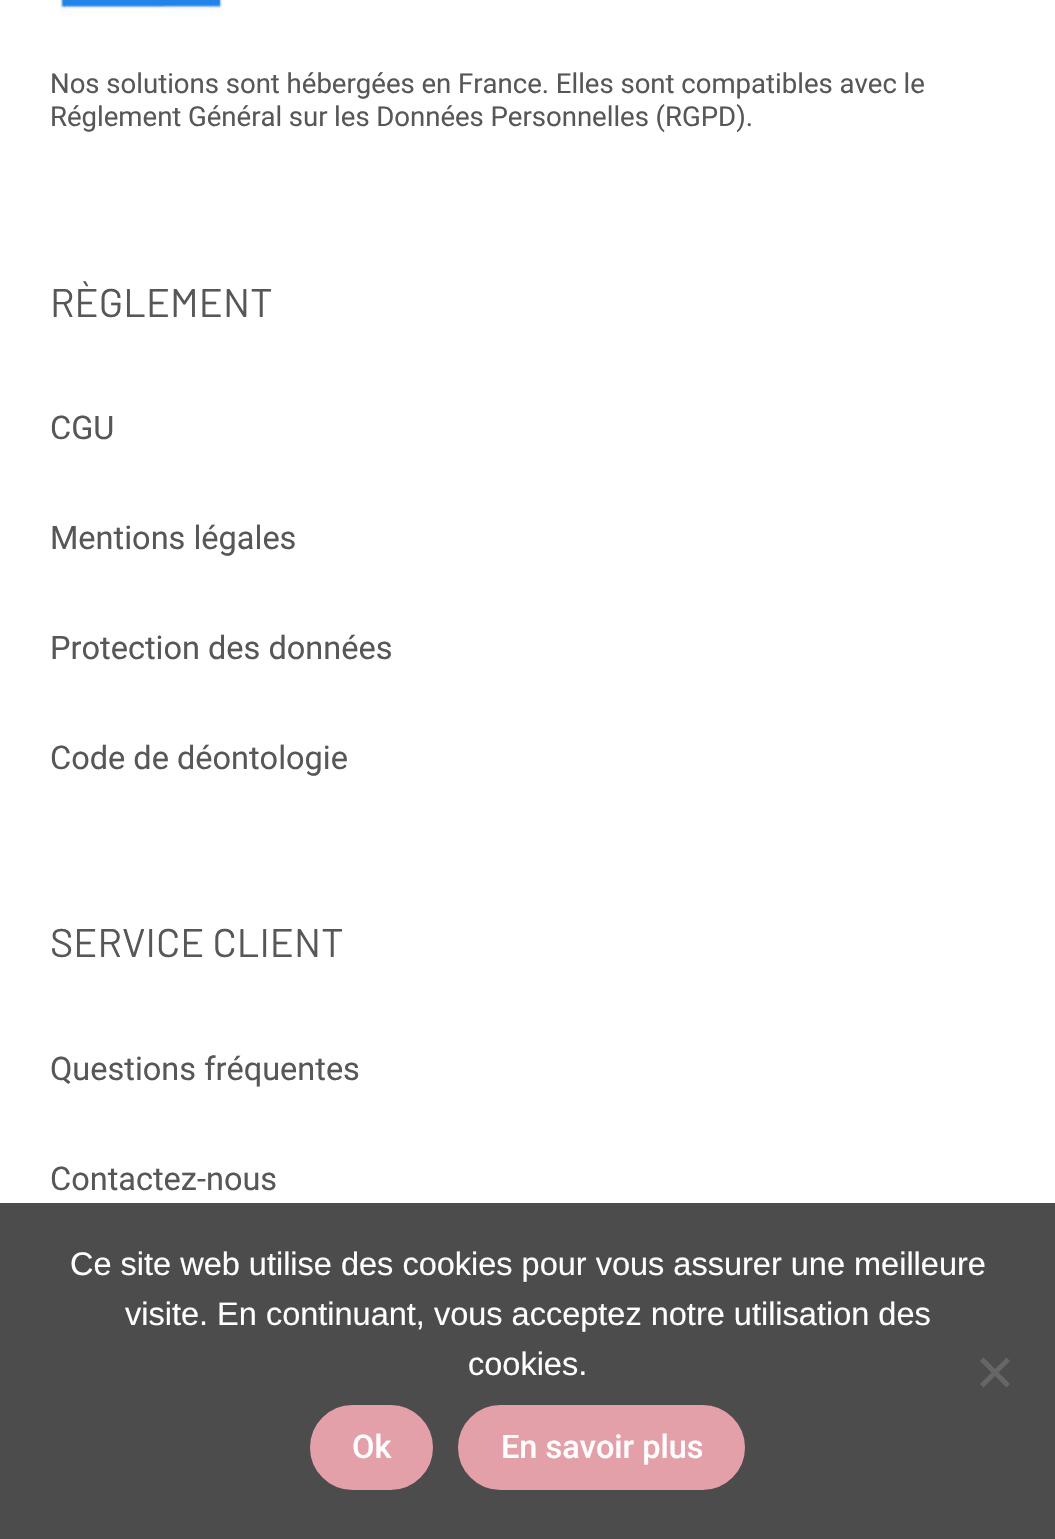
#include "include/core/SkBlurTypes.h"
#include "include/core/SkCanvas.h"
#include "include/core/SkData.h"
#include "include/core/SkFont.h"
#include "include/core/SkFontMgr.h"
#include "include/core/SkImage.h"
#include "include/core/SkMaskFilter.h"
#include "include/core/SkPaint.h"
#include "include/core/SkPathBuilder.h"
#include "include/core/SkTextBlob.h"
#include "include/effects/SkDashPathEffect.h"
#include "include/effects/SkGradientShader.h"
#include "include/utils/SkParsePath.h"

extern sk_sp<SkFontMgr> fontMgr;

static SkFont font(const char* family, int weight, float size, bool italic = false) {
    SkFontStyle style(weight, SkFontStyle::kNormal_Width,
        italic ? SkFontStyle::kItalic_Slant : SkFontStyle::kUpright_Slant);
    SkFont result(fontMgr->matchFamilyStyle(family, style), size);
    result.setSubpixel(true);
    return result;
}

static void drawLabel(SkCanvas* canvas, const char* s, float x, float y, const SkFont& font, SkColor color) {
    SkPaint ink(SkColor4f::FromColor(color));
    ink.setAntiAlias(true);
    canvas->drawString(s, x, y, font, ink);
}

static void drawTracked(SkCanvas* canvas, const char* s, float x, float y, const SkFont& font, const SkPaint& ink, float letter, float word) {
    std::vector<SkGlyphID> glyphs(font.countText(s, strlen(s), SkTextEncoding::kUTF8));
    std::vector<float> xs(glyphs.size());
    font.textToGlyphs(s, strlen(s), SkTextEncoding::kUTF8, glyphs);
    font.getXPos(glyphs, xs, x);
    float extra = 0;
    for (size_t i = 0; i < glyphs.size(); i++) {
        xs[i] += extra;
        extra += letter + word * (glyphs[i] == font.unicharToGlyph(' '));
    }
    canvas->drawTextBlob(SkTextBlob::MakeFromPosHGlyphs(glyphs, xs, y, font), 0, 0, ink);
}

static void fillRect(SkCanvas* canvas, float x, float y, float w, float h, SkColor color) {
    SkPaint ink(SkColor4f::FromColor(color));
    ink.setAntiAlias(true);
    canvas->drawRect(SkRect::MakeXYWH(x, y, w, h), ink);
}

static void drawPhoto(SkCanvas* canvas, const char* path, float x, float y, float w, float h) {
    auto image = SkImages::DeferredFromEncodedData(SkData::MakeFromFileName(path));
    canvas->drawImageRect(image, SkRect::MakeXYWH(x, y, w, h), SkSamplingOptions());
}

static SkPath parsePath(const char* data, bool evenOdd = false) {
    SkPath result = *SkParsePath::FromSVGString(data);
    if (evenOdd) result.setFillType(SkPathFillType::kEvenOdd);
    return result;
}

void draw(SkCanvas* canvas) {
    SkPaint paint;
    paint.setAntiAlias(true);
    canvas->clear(0xFFFFFFFF);
    drawPhoto(canvas, "assets/img1.png", 59, 0, 163, 16);
    SkFont font1 = font("Roboto", 400, 27.55f);
    paint.setColor(0xFF575757);
    drawTracked(canvas, "Nos solutions sont hébergées en France. Elles sont compatibles avec le", 50, 93, font1, paint, 0, -0.1f);
    drawTracked(canvas, "Réglement Général sur les Données Personnelles (RGPD).", 50, 126, font1, paint, 0, -0.25f);
    SkFont font2 = font("Barlow", 400, 40);
    drawLabel(canvas, "RÈGLEMENT", 50, 317, font2, 0xFF575757);
    SkFont font3 = font("Roboto", 400, 32.5f);
    drawLabel(canvas, "CGU", 50, 439, font3, 0xFF575757);
    drawLabel(canvas, "Mentions légales", 50, 549, font3, 0xFF575757);
    drawLabel(canvas, "Protection des données", 50, 659, font3, 0xFF575757);
    drawLabel(canvas, "Code de déontologie", 50, 769, font3, 0xFF575757);
    drawLabel(canvas, "SERVICE CLIENT", 50, 957, font2, 0xFF575757);
    drawLabel(canvas, "Questions fréquentes", 50, 1080, font3, 0xFF575757);
    drawLabel(canvas, "Contactez-nous", 50, 1190, font3, 0xFF575757);
    fillRect(canvas, 0, 1203, 1055, 336, 0xFF4C4C4C);
    SkFont font4 = font("Liberation Sans", 400, 32.5f);
    drawLabel(canvas, "Ce site web utilise des cookies pour vous assurer une meilleure", 70, 1275, font4, 0xFFFFFFFF);
    drawLabel(canvas, "visite. En continuant, vous acceptez notre utilisation des", 125, 1325, font4, 0xFFFFFFFF);
    drawLabel(canvas, "cookies.", 468, 1375, font4, 0xFFFFFFFF);
    paint.setColor(0xFF666666);
    canvas->drawPath(parsePath("M1006.5 1357.5L1010 1361L983.5 1387.5L980 1384Z"), paint);
    canvas->drawPath(parsePath("M980 1361L983.5 1357.5L1010 1384L1006.5 1387.5Z"), paint);
    paint.setColor(0xFFE4A0A9);
    canvas->drawRoundRect(SkRect::MakeXYWH(312.5f, 1407.5f, 118, 80), 40, 40, paint);
    paint.setStroke(true);
    paint.setStrokeWidth(5);
    canvas->drawRoundRect(SkRect::MakeXYWH(312.5f, 1407.5f, 118, 80), 40, 40, paint);
    SkFont font5 = font("Roboto", 500, 32.5f);
    drawLabel(canvas, "Ok", 352, 1458, font5, 0xFFFFFFFF);
    paint.setStroke(false);
    canvas->drawRoundRect(SkRect::MakeXYWH(460.5f, 1407.5f, 282, 80), 40, 40, paint);
    paint.setStroke(true);
    canvas->drawRoundRect(SkRect::MakeXYWH(460.5f, 1407.5f, 282, 80), 40, 40, paint);
    drawLabel(canvas, "En savoir plus", 501, 1458, font5, 0xFFFFFFFF);
}
